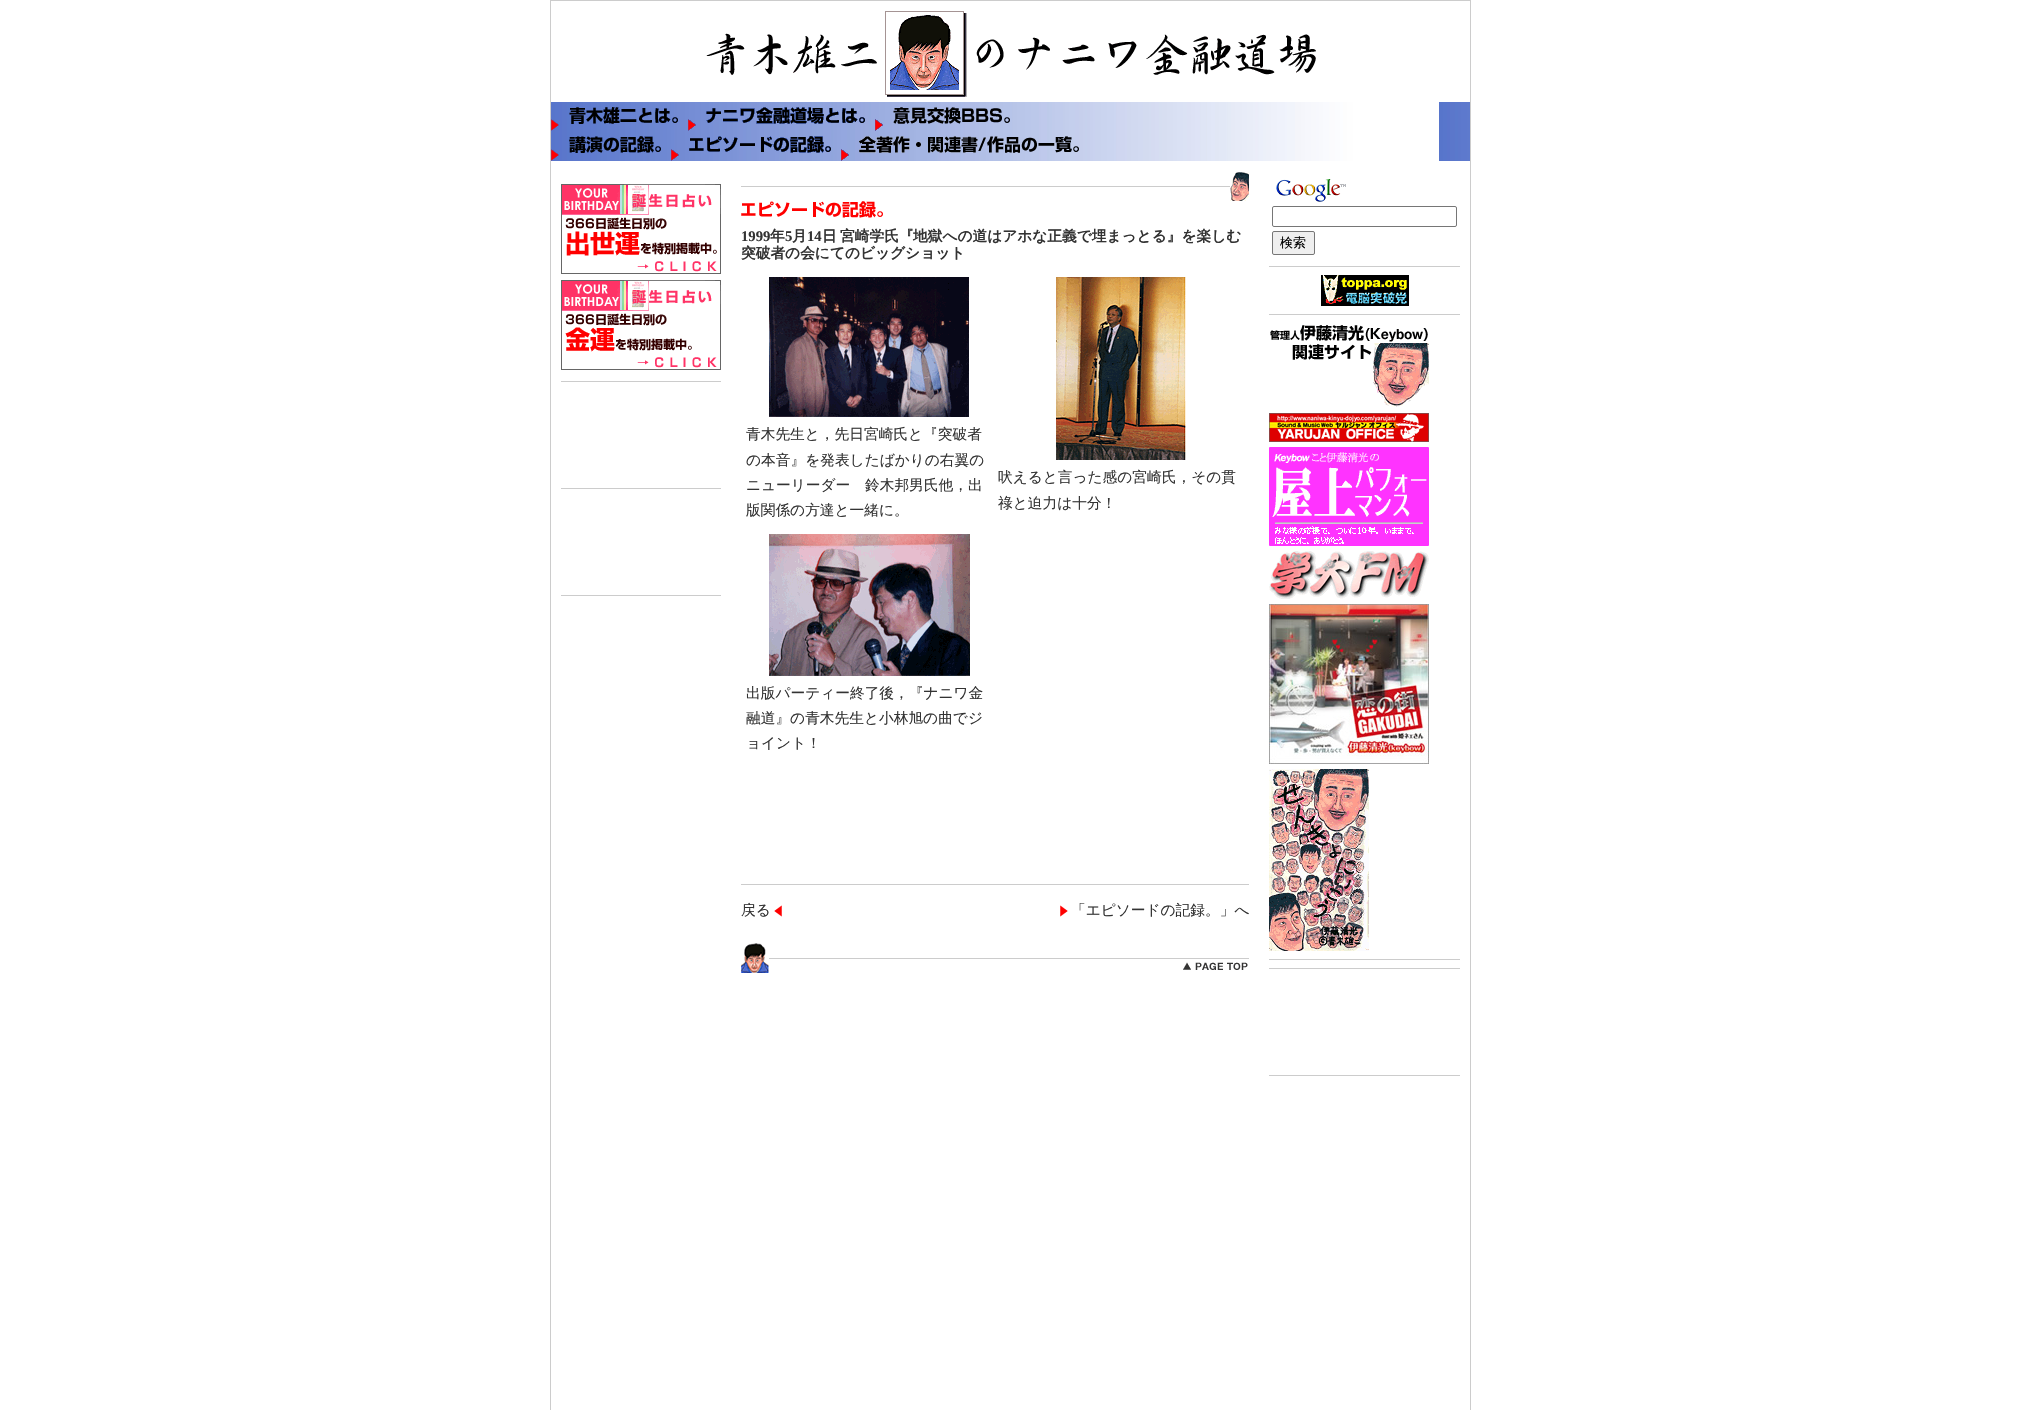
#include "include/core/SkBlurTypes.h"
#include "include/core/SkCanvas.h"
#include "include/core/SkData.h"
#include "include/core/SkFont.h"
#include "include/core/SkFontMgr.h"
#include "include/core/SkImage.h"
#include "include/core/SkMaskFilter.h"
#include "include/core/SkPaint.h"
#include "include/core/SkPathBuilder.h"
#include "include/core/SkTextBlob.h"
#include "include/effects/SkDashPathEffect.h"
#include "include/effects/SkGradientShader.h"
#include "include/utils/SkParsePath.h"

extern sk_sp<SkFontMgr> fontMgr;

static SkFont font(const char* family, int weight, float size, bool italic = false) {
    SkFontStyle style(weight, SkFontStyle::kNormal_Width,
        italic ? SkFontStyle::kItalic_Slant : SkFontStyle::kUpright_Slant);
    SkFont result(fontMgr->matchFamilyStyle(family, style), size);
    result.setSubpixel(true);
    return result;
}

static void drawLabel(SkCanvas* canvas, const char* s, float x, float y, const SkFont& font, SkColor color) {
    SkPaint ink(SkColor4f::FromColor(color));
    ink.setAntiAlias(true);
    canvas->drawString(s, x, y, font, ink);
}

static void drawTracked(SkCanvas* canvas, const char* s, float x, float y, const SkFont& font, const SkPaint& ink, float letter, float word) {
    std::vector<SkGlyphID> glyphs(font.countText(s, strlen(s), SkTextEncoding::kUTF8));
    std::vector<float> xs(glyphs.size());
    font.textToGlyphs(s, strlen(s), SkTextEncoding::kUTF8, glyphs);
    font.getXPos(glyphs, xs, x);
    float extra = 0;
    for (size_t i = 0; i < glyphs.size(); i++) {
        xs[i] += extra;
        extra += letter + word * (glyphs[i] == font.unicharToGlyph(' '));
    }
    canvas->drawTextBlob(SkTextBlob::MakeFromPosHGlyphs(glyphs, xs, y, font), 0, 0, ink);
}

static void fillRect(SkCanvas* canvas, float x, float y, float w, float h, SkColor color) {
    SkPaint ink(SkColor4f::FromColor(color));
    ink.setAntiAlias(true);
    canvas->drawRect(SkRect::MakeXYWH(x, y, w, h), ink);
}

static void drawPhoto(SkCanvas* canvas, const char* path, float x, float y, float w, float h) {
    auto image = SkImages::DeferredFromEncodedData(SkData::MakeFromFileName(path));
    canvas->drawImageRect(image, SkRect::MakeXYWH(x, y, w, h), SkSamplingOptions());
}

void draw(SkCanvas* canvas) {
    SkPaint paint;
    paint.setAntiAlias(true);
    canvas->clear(0xFFFFFFFF);
    fillRect(canvas, 550, 0, 921, 1, 0xFFCCCCCC);
    fillRect(canvas, 1470, 0, 1, 1410, 0xFFCCCCCC);
    fillRect(canvas, 550, 0, 1, 1410, 0xFFCCCCCC);
    drawPhoto(canvas, "assets/img1.png", 706, 11, 610, 86);
    drawPhoto(canvas, "assets/img2.png", 551, 102, 919, 59);
    drawPhoto(canvas, "assets/img3.png", 551, 119, 8, 12);
    drawPhoto(canvas, "assets/img4.png", 569, 107, 109, 17);
    drawPhoto(canvas, "assets/img5.png", 688, 119, 8, 12);
    drawPhoto(canvas, "assets/img6.png", 706, 107, 159, 17);
    drawPhoto(canvas, "assets/img7.png", 875, 119, 8, 12);
    drawPhoto(canvas, "assets/img8.png", 893, 107, 117, 17);
    drawPhoto(canvas, "assets/img9.png", 569, 136, 92, 17);
    drawPhoto(canvas, "assets/img10.png", 689, 136, 142, 17);
    drawPhoto(canvas, "assets/img11.png", 859, 136, 220, 17);
    drawPhoto(canvas, "assets/img3.png", 551, 149, 8, 12);
    drawPhoto(canvas, "assets/img12.png", 671, 149, 8, 12);
    drawPhoto(canvas, "assets/img13.png", 841, 149, 8, 12);
    drawPhoto(canvas, "assets/img14.png", 561, 184, 160, 90);
    drawPhoto(canvas, "assets/img15.png", 561, 280, 160, 90);
    fillRect(canvas, 561, 381, 160, 1, 0xFFCCCCCC);
    fillRect(canvas, 561, 488, 160, 1, 0xFFCCCCCC);
    fillRect(canvas, 561, 595, 160, 1, 0xFFCCCCCC);
    drawPhoto(canvas, "assets/img16.png", 741, 172, 508, 29);
    drawPhoto(canvas, "assets/img17.png", 741, 201, 142, 17);
    SkFont font1 = font("Liberation Serif", 700, 14.7f);
    drawLabel(canvas, "1999", 741, 241, font1, 0xFF333333);
    SkFont font2 = font("WenQuanYi Zen Hei", 700, 14.7f);
    drawLabel(canvas, "年", 770, 241, font2, 0xFF333333);
    drawLabel(canvas, "5", 785, 241, font1, 0xFF333333);
    drawLabel(canvas, "月", 792, 241, font2, 0xFF333333);
    drawLabel(canvas, "14", 807, 241, font1, 0xFF333333);
    paint.setColor(0xFF333333);
    drawTracked(canvas, "日 宮崎学氏『", 822, 241, font2, paint, 0, -1);
    drawLabel(canvas, "地獄への道はアホな正義で埋まっとる』を楽しむ", 913, 241, font2, 0xFF333333);
    drawLabel(canvas, "突破者の会にてのビッグショット", 741, 258, font2, 0xFF333333);
    drawPhoto(canvas, "assets/img18.png", 769, 277, 200, 140);
    SkFont font3 = font("WenQuanYi Zen Hei", 500, 14.7f);
    drawLabel(canvas, "青木先生と，先日宮崎氏と『突破者", 746, 439, font3, 0xFF333333);
    drawLabel(canvas, "の本音』を発表したばかりの右翼の", 746, 465, font3, 0xFF333333);
    drawLabel(canvas, "ニューリーダー　鈴木邦男氏他，出", 746, 490, font3, 0xFF333333);
    drawLabel(canvas, "版関係の方達と一緒に。", 746, 515, font3, 0xFF333333);
    drawPhoto(canvas, "assets/img19.png", 1056, 277, 130, 183);
    drawLabel(canvas, "吠えると言った感の宮崎氏，その貫", 998, 482, font3, 0xFF333333);
    drawLabel(canvas, "祿と迫力は十分！", 998, 508, font3, 0xFF333333);
    drawPhoto(canvas, "assets/img20.png", 769, 534, 201, 142);
    drawLabel(canvas, "出版パーティー終了後，『ナニワ金", 746, 698, font3, 0xFF333333);
    drawLabel(canvas, "融道』の青木先生と小林旭の曲でジ", 746, 723, font3, 0xFF333333);
    drawLabel(canvas, "ョイント！", 746, 748, font3, 0xFF333333);
    fillRect(canvas, 741, 884, 508, 1, 0xFFCCCCCC);
    drawLabel(canvas, "戻る", 741, 915, font3, 0xFF333333);
    drawPhoto(canvas, "assets/img21.png", 774, 905, 8, 12);
    drawPhoto(canvas, "assets/img22.png", 1060, 905, 8, 12);
    drawLabel(canvas, "「エピソードの記録。」へ", 1071, 915, font3, 0xFF333333);
    drawPhoto(canvas, "assets/img23.png", 741, 943, 508, 30);
    drawPhoto(canvas, "assets/img24.png", 1276, 179, 70, 23);
    paint.setStroke(true);
    paint.setStrokeWidth(1);
    paint.setColor(0xFF767676);
    canvas->drawRoundRect(SkRect::MakeXYWH(1272.5f, 206.5f, 184, 20), 1.5f, 1.5f, paint);
    paint.setStroke(false);
    paint.setColor(0xFFEFEFEF);
    canvas->drawRoundRect(SkRect::MakeXYWH(1272.5f, 231.5f, 42, 23), 1.5f, 1.5f, paint);
    paint.setStroke(true);
    paint.setColor(0xFF767676);
    canvas->drawRoundRect(SkRect::MakeXYWH(1272.5f, 231.5f, 42, 23), 1.5f, 1.5f, paint);
    SkFont font4 = font("WenQuanYi Zen Hei", 500, 13);
    drawLabel(canvas, "検索", 1280, 247, font4, 0xFF000000);
    fillRect(canvas, 1269, 266, 191, 1, 0xFFCCCCCC);
    drawPhoto(canvas, "assets/img25.png", 1321, 275, 88, 31);
    fillRect(canvas, 1269, 314, 191, 1, 0xFFCCCCCC);
    drawPhoto(canvas, "assets/img26.png", 1270, 325, 159, 82);
    drawPhoto(canvas, "assets/img27.png", 1269, 413, 160, 29);
    drawPhoto(canvas, "assets/img28.png", 1269, 447, 160, 99);
    drawPhoto(canvas, "assets/img29.png", 1269, 551, 160, 48);
    drawPhoto(canvas, "assets/img30.png", 1269, 604, 160, 160);
    drawPhoto(canvas, "assets/img31.png", 1269, 769, 100, 182);
    fillRect(canvas, 1269, 959, 191, 1, 0xFFCCCCCC);
    fillRect(canvas, 1269, 968, 191, 1, 0xFFCCCCCC);
    fillRect(canvas, 1269, 1075, 191, 1, 0xFFCCCCCC);
}
